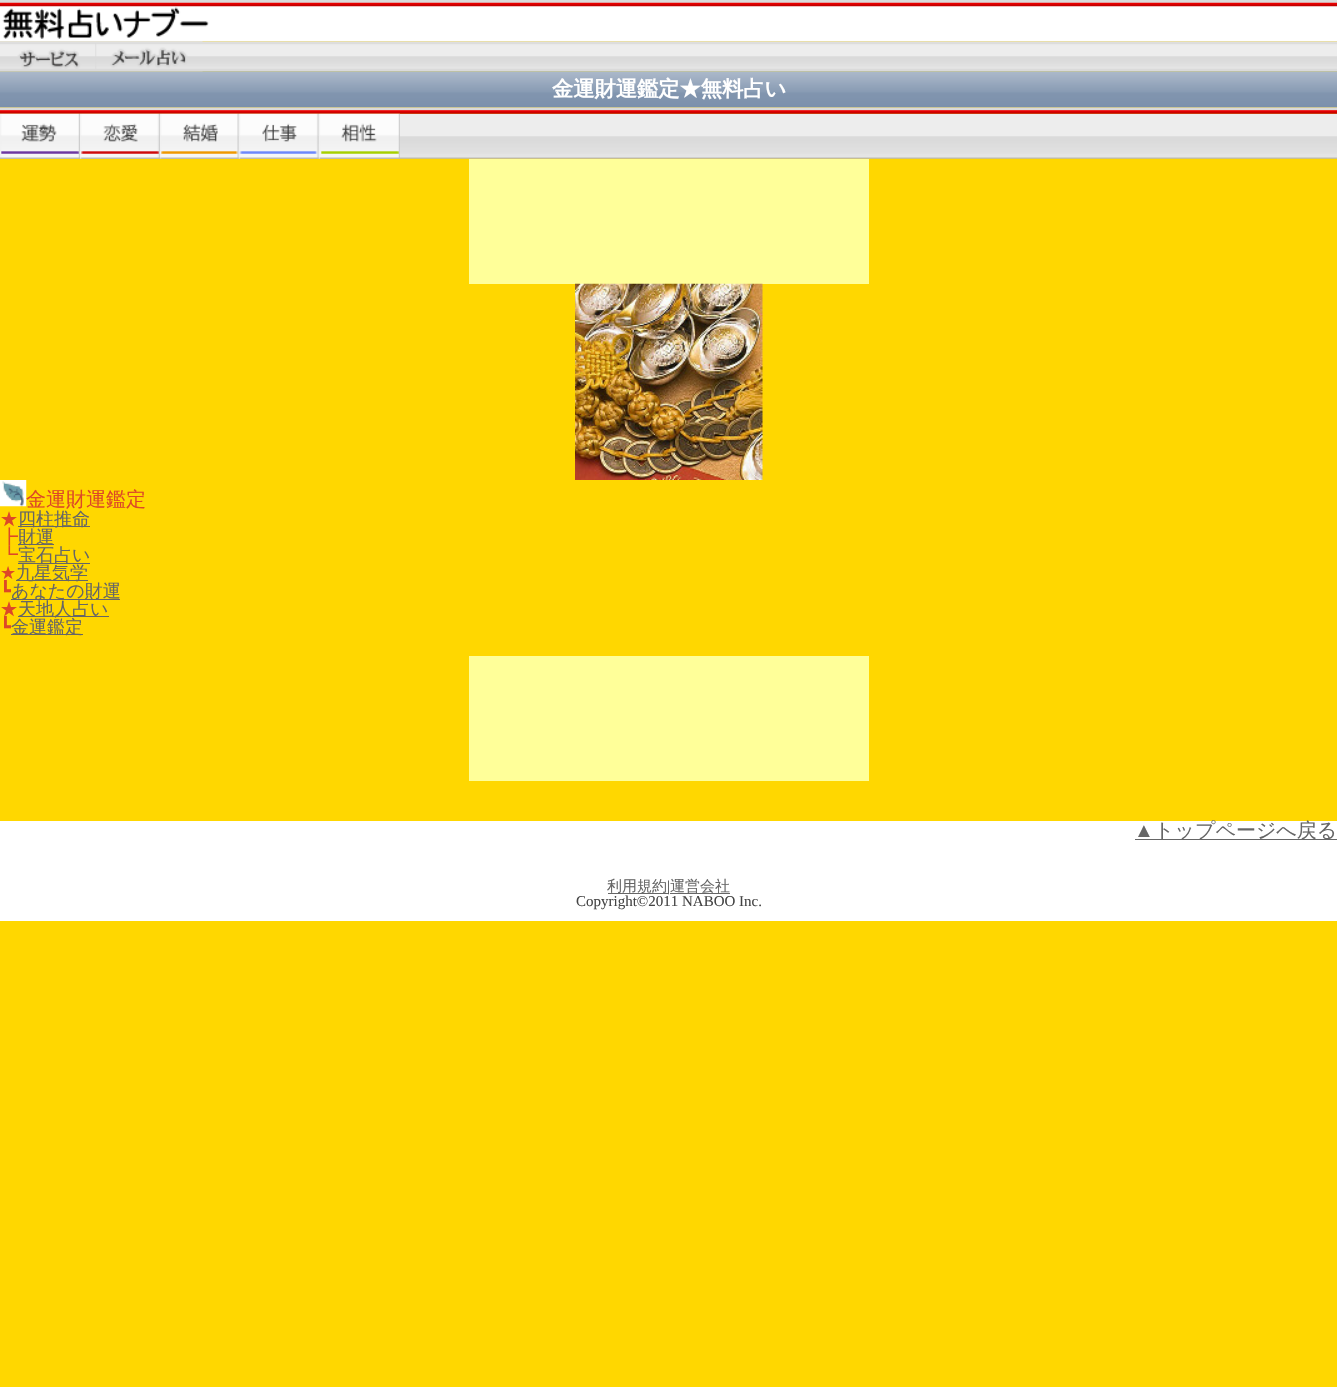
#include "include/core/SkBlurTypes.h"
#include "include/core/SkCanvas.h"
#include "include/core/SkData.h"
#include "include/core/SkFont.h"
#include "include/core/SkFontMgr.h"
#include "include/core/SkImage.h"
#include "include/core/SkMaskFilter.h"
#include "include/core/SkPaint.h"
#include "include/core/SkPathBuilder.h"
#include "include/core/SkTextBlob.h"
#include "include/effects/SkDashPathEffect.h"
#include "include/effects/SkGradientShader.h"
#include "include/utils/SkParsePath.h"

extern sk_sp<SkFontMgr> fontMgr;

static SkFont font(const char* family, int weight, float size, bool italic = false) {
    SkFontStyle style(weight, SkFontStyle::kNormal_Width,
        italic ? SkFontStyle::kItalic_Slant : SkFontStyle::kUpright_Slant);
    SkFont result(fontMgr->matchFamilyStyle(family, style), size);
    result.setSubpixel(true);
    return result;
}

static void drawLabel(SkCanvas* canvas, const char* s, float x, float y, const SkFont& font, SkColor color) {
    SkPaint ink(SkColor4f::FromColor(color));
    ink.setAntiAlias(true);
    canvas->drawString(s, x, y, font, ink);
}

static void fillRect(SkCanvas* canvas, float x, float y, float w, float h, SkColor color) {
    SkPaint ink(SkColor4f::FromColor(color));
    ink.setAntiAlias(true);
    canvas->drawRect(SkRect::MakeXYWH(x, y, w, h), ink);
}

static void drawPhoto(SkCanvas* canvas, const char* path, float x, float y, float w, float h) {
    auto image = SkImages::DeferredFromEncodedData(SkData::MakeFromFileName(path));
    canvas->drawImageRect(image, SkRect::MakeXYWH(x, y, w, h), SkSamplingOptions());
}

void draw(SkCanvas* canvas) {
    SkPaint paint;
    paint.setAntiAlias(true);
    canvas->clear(0xFFFFD700);
    fillRect(canvas, 0, 6, 1337, 35, 0xFFFFFFFF);
    drawPhoto(canvas, "assets/img1.png", 0, 0, 1337, 7);
    drawPhoto(canvas, "assets/img2.png", 2, 7, 207, 32);
    drawPhoto(canvas, "assets/img3.png", 0, 41, 1337, 31);
    drawPhoto(canvas, "assets/img6.png", 0, 71, 1337, 37);
    drawPhoto(canvas, "assets/img4.png", 0, 41, 95, 31);
    drawPhoto(canvas, "assets/img5.png", 95, 41, 108, 31);
    SkFont font1 = font("WenQuanYi Zen Hei", 700, 21.25f);
    drawLabel(canvas, "金運財運鑑定★無料占い", 552, 96, font1, 0xFFFFFFFF);
    drawPhoto(canvas, "assets/img8.png", 0, 113, 1337, 46);
    drawPhoto(canvas, "assets/img7.png", 0, 107, 1337, 7);
    drawPhoto(canvas, "assets/img9.png", 0, 113, 80, 46);
    drawPhoto(canvas, "assets/img10.png", 80, 113, 80, 46);
    drawPhoto(canvas, "assets/img11.png", 160, 113, 79, 46);
    drawPhoto(canvas, "assets/img12.png", 238, 113, 81, 46);
    drawPhoto(canvas, "assets/img13.png", 318, 113, 82, 46);
    fillRect(canvas, 469, 159, 400, 125, 0xFFFFFF99);
    drawPhoto(canvas, "assets/img14.png", 575, 283, 188, 197);
    drawPhoto(canvas, "assets/img15.png", 0, 480, 27, 27);
    SkFont font2 = font("WenQuanYi Zen Hei", 500, 20);
    drawLabel(canvas, "金運財運鑑定", 26, 506, font2, 0xFFDD4827);
    SkFont font3 = font("WenQuanYi Zen Hei", 500, 18);
    drawLabel(canvas, "★", 0, 525, font3, 0xFFDD4827);
    fillRect(canvas, 18, 526, 72, 1, 0xFF666666);
    drawLabel(canvas, "四柱推命", 18, 525, font3, 0xFF666666);
    drawLabel(canvas, "┣", 0, 543, font3, 0xFFDD4827);
    fillRect(canvas, 18, 544, 36, 1, 0xFF666666);
    drawLabel(canvas, "財運", 18, 543, font3, 0xFF666666);
    drawLabel(canvas, "┗", 0, 561, font3, 0xFFDD4827);
    fillRect(canvas, 18, 563, 72, 1, 0xFF666666);
    drawLabel(canvas, "宝石占い", 18, 561, font3, 0xFF666666);
    SkFont font4 = font("DejaVu Sans", 400, 18);
    drawLabel(canvas, "★", 0, 579, font4, 0xFFDD4827);
    fillRect(canvas, 16, 580, 72, 1, 0xFF666666);
    drawLabel(canvas, "九星気学", 16, 579, font3, 0xFF666666);
    drawLabel(canvas, "┗", 0, 597, font4, 0xFFDD4827);
    fillRect(canvas, 11, 599, 109, 1, 0xFF666666);
    drawLabel(canvas, "あなたの財運", 11, 597, font3, 0xFF666666);
    drawLabel(canvas, "★", 0, 615, font3, 0xFFDD4827);
    fillRect(canvas, 18, 616, 91, 1, 0xFF666666);
    drawLabel(canvas, "天地人占い", 18, 615, font3, 0xFF666666);
    drawLabel(canvas, "┗", 0, 633, font4, 0xFFDD4827);
    fillRect(canvas, 11, 634, 72, 1, 0xFF666666);
    drawLabel(canvas, "金運鑑定", 11, 633, font3, 0xFF666666);
    fillRect(canvas, 469, 656, 400, 125, 0xFFFFFF99);
    fillRect(canvas, 0, 821, 1337, 100, 0xFFFFFFFF);
    SkFont font5 = font("Liberation Serif", 400, 20);
    drawLabel(canvas, "▲", 1134, 837, font5, 0xFF666666);
    fillRect(canvas, 1135, 839, 202, 1, 0xFF666666);
    drawLabel(canvas, "トップページへ戻る", 1154, 837, font2, 0xFF666666);
    fillRect(canvas, 608, 893, 60, 1, 0xFF666666);
    SkFont font6 = font("WenQuanYi Zen Hei", 500, 15);
    drawLabel(canvas, "利用規約", 607, 891, font6, 0xFF666666);
    SkFont font7 = font("Liberation Serif", 400, 15);
    drawLabel(canvas, "|", 667, 891, font7, 0xFF444444);
    fillRect(canvas, 670, 893, 60, 1, 0xFF666666);
    drawLabel(canvas, "運営会社", 670, 891, font6, 0xFF666666);
    drawLabel(canvas, "Copyright©2011 NABOO Inc.", 576, 906, font7, 0xFF444444);
}
